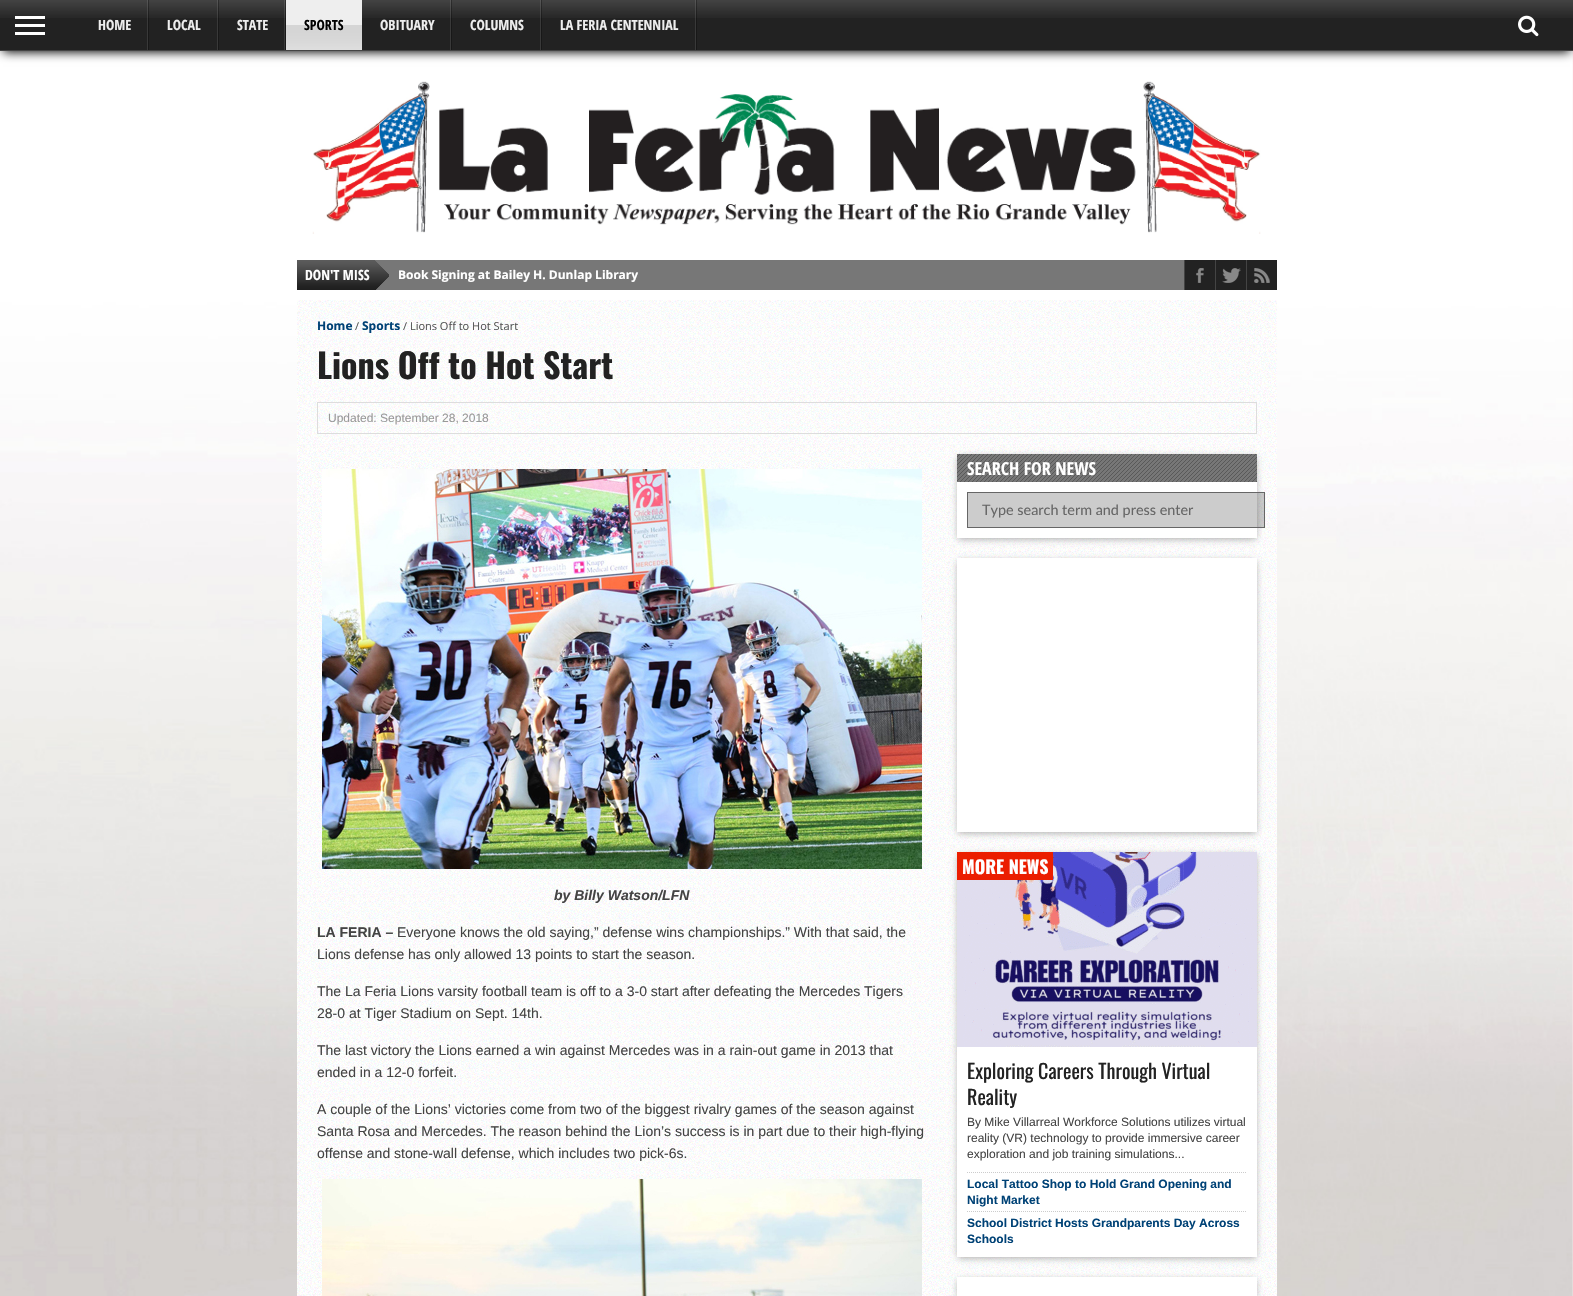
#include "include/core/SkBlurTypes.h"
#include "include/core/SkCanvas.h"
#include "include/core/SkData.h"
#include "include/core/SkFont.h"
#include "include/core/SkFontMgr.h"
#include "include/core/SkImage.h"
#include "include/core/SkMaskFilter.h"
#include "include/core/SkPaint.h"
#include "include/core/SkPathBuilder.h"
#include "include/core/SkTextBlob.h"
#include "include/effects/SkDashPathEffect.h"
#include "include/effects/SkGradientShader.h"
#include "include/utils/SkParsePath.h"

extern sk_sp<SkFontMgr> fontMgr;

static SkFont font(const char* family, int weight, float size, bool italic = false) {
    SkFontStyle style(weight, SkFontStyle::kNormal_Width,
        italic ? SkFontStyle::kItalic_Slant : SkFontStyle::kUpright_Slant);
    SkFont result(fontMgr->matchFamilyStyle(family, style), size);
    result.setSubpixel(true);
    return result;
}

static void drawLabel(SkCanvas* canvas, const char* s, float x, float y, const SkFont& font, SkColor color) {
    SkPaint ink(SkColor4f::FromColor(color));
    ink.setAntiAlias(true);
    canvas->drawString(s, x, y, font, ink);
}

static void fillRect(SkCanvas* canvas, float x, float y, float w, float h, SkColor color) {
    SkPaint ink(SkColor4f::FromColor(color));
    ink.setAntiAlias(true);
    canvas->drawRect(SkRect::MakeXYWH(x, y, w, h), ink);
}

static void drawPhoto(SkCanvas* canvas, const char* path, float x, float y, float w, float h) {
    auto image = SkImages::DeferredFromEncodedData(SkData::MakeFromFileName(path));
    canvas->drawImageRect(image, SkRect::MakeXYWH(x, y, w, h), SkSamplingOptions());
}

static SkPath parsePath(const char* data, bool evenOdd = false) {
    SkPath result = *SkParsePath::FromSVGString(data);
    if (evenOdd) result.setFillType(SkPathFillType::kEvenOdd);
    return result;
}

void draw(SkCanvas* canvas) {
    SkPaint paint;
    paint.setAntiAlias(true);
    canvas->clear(0xFFFFEDED);
    drawPhoto(canvas, "assets/img1.png", 0, 51, 1573, 1245);
    paint.setColor(0xFF000000);
    paint.setMaskFilter(SkMaskFilter::MakeBlur(kNormal_SkBlurStyle, 5));
    canvas->drawRect(SkRect::MakeXYWH(3, 7, 1567, 45), paint);
    paint.setMaskFilter(nullptr);
    fillRect(canvas, 0, 0, 1573, 50, 0xFF222222);
    drawPhoto(canvas, "assets/img2.png", 0, 0, 1573, 18);
    fillRect(canvas, 0, 50, 1573, 1, 0xFF444444);
    fillRect(canvas, 15, 16, 30, 3, 0xFFFFFFFF);
    fillRect(canvas, 15, 24, 30, 3, 0xFFFFFFFF);
    fillRect(canvas, 15, 32, 30, 3, 0xFFFFFFFF);
    drawPhoto(canvas, "assets/img3.png", 147, 0, 2, 50);
    SkFont font1 = font("Open Sans Condensed", 700, 14);
    drawLabel(canvas, "HOME", 98, 30, font1, 0xFFEEEEEE);
    drawPhoto(canvas, "assets/img3.png", 217, 0, 2, 50);
    drawLabel(canvas, "LOCAL", 167, 30, font1, 0xFFEEEEEE);
    drawPhoto(canvas, "assets/img3.png", 284, 0, 2, 50);
    drawLabel(canvas, "STATE", 237, 30, font1, 0xFFEEEEEE);
    fillRect(canvas, 286, 0, 76, 50, 0xFFEEEEEE);
    drawPhoto(canvas, "assets/img4.png", 286, 25, 76, 25);
    drawLabel(canvas, "SPORTS", 304, 30, font1, 0xFF000000);
    drawPhoto(canvas, "assets/img3.png", 450, 0, 2, 50);
    drawLabel(canvas, "OBITUARY", 380, 30, font1, 0xFFEEEEEE);
    drawPhoto(canvas, "assets/img3.png", 540, 0, 2, 50);
    drawLabel(canvas, "COLUMNS", 470, 30, font1, 0xFFEEEEEE);
    drawPhoto(canvas, "assets/img3.png", 695, 0, 2, 50);
    drawLabel(canvas, "LA FERIA CENTENNIAL", 560, 30, font1, 0xFFEEEEEE);
    drawPhoto(canvas, "assets/img5.png", 1518, 15, 21, 22);
    drawPhoto(canvas, "assets/img6.png", 312, 81, 949, 153);
    fillRect(canvas, 375, 260, 809, 30, 0xFF777777);
    drawPhoto(canvas, "assets/img7.png", 297, 260, 92, 30);
    drawLabel(canvas, "DON'T MISS", 305, 280, font1, 0xFFFFFFFF);
    SkFont font2 = font("Open Sans", 700, 12);
    drawLabel(canvas, "Book Signing at Bailey H. Dunlap Library", 398, 279, font2, 0xFFFFFFFF);
    fillRect(canvas, 1185, 260, 92, 30, 0xFF222222);
    fillRect(canvas, 1184, 260, 1, 30, 0xFF444444);
    drawPhoto(canvas, "assets/img8.png", 1196, 268, 8, 15);
    fillRect(canvas, 1215, 260, 1, 30, 0xFF444444);
    drawPhoto(canvas, "assets/img9.png", 1222, 268, 19, 15);
    fillRect(canvas, 1246, 260, 1, 30, 0xFF444444);
    drawPhoto(canvas, "assets/img10.png", 1254, 268, 16, 15);
    drawPhoto(canvas, "assets/img11.png", 297, 300, 980, 996);
    drawLabel(canvas, "Home", 317, 330, font2, 0xFF004276);
    SkFont font3 = font("Open Sans", 400, 11);
    drawLabel(canvas, "/", 355, 330, font3, 0xFF555555);
    drawLabel(canvas, "Sports", 362, 330, font2, 0xFF004276);
    drawLabel(canvas, "/ Lions Off to Hot Start", 403, 330, font3, 0xFF555555);
    SkFont font4 = font("Oswald", 700, 34);
    drawLabel(canvas, "Lions Off to Hot Start", 317, 379, font4, 0xFF222222);
    paint.setStroke(true);
    paint.setStrokeWidth(1);
    paint.setColor(0xFFDDDDDD);
    canvas->drawRect(SkRect::MakeXYWH(317.5f, 402.5f, 939, 31), paint);
    SkFont font5 = font("Liberation Sans", 400, 12);
    drawLabel(canvas, "Updated: September 28, 2018", 328, 422, font5, 0xFF999999);
    drawPhoto(canvas, "assets/img12.png", 322, 469, 600, 400);
    SkFont font6 = font("Liberation Sans", 700, 14, true);
    drawLabel(canvas, "by Billy Watson/LFN", 554, 900, font6, 0xFF444444);
    SkFont font7 = font("Liberation Sans", 700, 14);
    drawLabel(canvas, "LA FERIA –", 317, 937, font7, 0xFF444444);
    SkFont font8 = font("Liberation Sans", 400, 14);
    drawLabel(canvas, "Everyone knows the old saying,” defense wins championships.” With that said, the", 397, 937, font8, 0xFF444444);
    drawLabel(canvas, "Lions defense has only allowed 13 points to start the season.", 317, 959, font8, 0xFF444444);
    drawLabel(canvas, "The La Feria Lions varsity football team is off to a 3-0 start after defeating the Mercedes Tigers", 317, 996, font8, 0xFF444444);
    drawLabel(canvas, "28-0 at Tiger Stadium on Sept. 14th.", 317, 1018, font8, 0xFF444444);
    drawLabel(canvas, "The last victory the Lions earned a win against Mercedes was in a rain-out game in 2013 that", 317, 1055, font8, 0xFF444444);
    drawLabel(canvas, "ended in a 12-0 forfeit.", 317, 1077, font8, 0xFF444444);
    drawLabel(canvas, "A couple of the Lions’ victories come from two of the biggest rivalry games of the season against", 317, 1114, font8, 0xFF444444);
    drawLabel(canvas, "Santa Rosa and Mercedes. The reason behind the Lion’s success is in part due to their high-flying", 317, 1136, font8, 0xFF444444);
    drawLabel(canvas, "offense and stone-wall defense, which includes two pick-6s.", 317, 1158, font8, 0xFF444444);
    drawPhoto(canvas, "assets/img13.png", 322, 1179, 600, 117);
    paint.setStroke(false);
    paint.setColor(0xFFAAAAAA);
    paint.setMaskFilter(SkMaskFilter::MakeBlur(kNormal_SkBlurStyle, 3.5f));
    canvas->drawRect(SkRect::MakeXYWH(958, 457, 298, 82), paint);
    paint.setMaskFilter(nullptr);
    fillRect(canvas, 957, 482, 300, 56, 0xFFFFFFFF);
    fillRect(canvas, 957, 454, 300, 28, 0xFF777777);
    drawPhoto(canvas, "assets/img14.png", 957, 454, 300, 28);
    SkFont font9 = font("Open Sans Condensed", 700, 18);
    drawLabel(canvas, "SEARCH FOR NEWS", 967, 475, font9, 0xFFFFFFFF);
    paint.setColor(0x33000000);
    canvas->drawRect(SkRect::MakeXYWH(967.5f, 492.5f, 297, 35), paint);
    paint.setStroke(true);
    paint.setColor(0xFF666666);
    canvas->drawRect(SkRect::MakeXYWH(967.5f, 492.5f, 297, 35), paint);
    SkFont font10 = font("Lato", 400, 14.4f);
    drawLabel(canvas, "Type search term and press enter", 982, 515, font10, 0xFF666666);
    paint.setStroke(false);
    paint.setColor(0xFFAAAAAA);
    paint.setMaskFilter(SkMaskFilter::MakeBlur(kNormal_SkBlurStyle, 3.5f));
    canvas->drawRect(SkRect::MakeXYWH(958, 561, 298, 272), paint);
    paint.setMaskFilter(nullptr);
    fillRect(canvas, 957, 558, 300, 274, 0xFFFFFFFF);
    paint.setMaskFilter(SkMaskFilter::MakeBlur(kNormal_SkBlurStyle, 3.5f));
    canvas->drawRect(SkRect::MakeXYWH(958, 855, 298, 403), paint);
    paint.setMaskFilter(nullptr);
    fillRect(canvas, 957, 1047, 300, 210, 0xFFFFFFFF);
    drawPhoto(canvas, "assets/img15.png", 957, 852, 300, 195);
    fillRect(canvas, 957, 852, 96, 28, 0xFFEB1E00);
    SkFont font11 = font("Oswald", 700, 18);
    drawLabel(canvas, "MORE NEWS", 962, 874, font11, 0xFFFFFFFF);
    SkFont font12 = font("Oswald", 400, 20);
    drawLabel(canvas, "Exploring Careers Through Virtual", 967, 1079, font12, 0xFF222222);
    drawLabel(canvas, "Reality", 967, 1105, font12, 0xFF222222);
    drawLabel(canvas, "By Mike Villarreal Workforce Solutions utilizes virtual", 967, 1126, font5, 0xFF444444);
    drawLabel(canvas, "reality (VR) technology to provide immersive career", 967, 1142, font5, 0xFF444444);
    drawLabel(canvas, "exploration and job training simulations...", 967, 1158, font5, 0xFF444444);
    paint.setStroke(true);
    paint.setColor(0xFFCCCCCC);
    paint.setPathEffect(SkDashPathEffect::Make({{1, 1}}, 0));
    canvas->drawPath(parsePath("M967 1172.5H1247"), paint);
    paint.setPathEffect(nullptr);
    SkFont font13 = font("Liberation Sans", 700, 12);
    drawLabel(canvas, "Local Tattoo Shop to Hold Grand Opening and", 967, 1188, font13, 0xFF004276);
    drawLabel(canvas, "Night Market", 967, 1204, font13, 0xFF004276);
    paint.setPathEffect(SkDashPathEffect::Make({{1, 1}}, 0));
    canvas->drawPath(parsePath("M967 1211.5H1247"), paint);
    paint.setPathEffect(nullptr);
    drawLabel(canvas, "School District Hosts Grandparents Day Across", 967, 1227, font13, 0xFF004276);
    drawLabel(canvas, "Schools", 967, 1243, font13, 0xFF004276);
    paint.setStroke(false);
    paint.setColor(0xFFAAAAAA);
    paint.setMaskFilter(SkMaskFilter::MakeBlur(kNormal_SkBlurStyle, 3.5f));
    canvas->drawRect(SkRect::MakeXYWH(958, 1280, 298, 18), paint);
    paint.setMaskFilter(nullptr);
    fillRect(canvas, 957, 1277, 300, 19, 0xFFFFFFFF);
}
